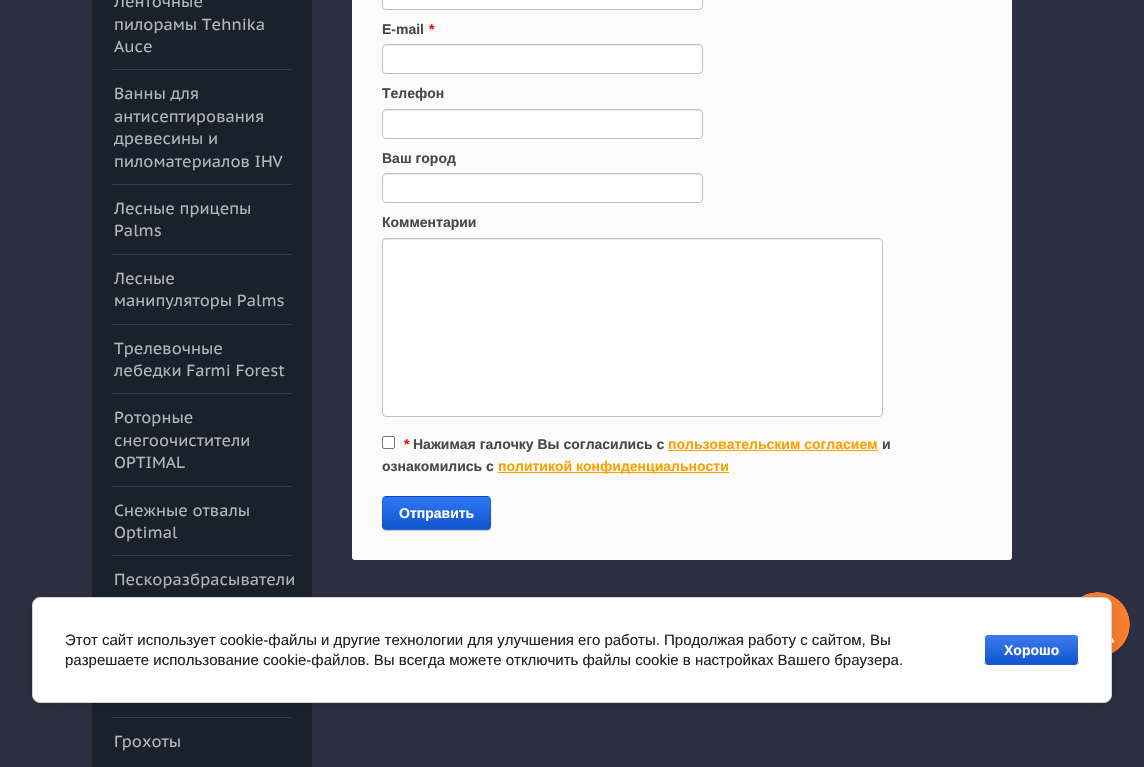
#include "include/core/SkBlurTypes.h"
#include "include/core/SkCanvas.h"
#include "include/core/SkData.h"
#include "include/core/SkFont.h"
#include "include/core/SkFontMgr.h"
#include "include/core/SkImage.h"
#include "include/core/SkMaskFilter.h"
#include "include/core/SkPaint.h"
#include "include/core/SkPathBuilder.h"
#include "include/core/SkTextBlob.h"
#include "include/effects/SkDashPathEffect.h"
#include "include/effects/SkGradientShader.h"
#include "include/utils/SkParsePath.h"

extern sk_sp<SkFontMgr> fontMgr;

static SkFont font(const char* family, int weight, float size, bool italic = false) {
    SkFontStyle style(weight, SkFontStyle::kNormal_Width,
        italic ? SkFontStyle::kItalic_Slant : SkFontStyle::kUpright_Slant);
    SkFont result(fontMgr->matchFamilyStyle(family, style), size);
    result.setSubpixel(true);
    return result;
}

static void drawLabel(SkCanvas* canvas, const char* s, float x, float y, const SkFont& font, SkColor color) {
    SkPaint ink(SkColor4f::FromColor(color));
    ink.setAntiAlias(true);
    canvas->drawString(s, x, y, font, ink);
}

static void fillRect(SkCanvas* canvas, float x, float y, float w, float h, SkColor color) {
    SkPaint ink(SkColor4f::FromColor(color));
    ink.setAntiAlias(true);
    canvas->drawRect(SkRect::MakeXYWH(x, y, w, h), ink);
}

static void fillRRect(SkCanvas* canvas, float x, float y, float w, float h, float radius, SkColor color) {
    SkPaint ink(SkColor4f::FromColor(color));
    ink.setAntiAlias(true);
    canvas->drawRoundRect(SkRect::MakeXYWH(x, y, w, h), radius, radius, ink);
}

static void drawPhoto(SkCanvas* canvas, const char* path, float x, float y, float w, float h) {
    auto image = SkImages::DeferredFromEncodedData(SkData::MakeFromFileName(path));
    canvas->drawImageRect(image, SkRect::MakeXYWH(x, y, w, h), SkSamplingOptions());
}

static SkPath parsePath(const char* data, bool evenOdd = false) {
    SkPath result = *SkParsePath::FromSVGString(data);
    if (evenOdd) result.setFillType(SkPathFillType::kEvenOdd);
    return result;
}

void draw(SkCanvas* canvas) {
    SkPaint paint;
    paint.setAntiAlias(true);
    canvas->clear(0xFF2D2F42);
    fillRect(canvas, 92, 0, 220, 767, 0xFF19212D);
    SkFont font1 = font("PT Sans Caption", 400, 16);
    drawLabel(canvas, "Ленточные", 114, 7, font1, 0xFFB5B5B5);
    drawLabel(canvas, "пилорамы Tehnika", 114, 30, font1, 0xFFB5B5B5);
    drawLabel(canvas, "Auce", 114, 52, font1, 0xFFB5B5B5);
    fillRect(canvas, 112, 69, 180, 1, 0xFF353C46);
    drawLabel(canvas, "Ванны для", 114, 99, font1, 0xFFB5B5B5);
    drawLabel(canvas, "антисептирования", 114, 122, font1, 0xFFB5B5B5);
    drawLabel(canvas, "древесины и", 114, 144, font1, 0xFFB5B5B5);
    drawLabel(canvas, "пиломатериалов IHV", 114, 167, font1, 0xFFB5B5B5);
    fillRect(canvas, 112, 184, 180, 1, 0xFF353C46);
    drawLabel(canvas, "Лесные прицепы", 114, 214, font1, 0xFFB5B5B5);
    drawLabel(canvas, "Palms", 114, 236, font1, 0xFFB5B5B5);
    fillRect(canvas, 112, 254, 180, 1, 0xFF353C46);
    drawLabel(canvas, "Лесные", 114, 284, font1, 0xFFB5B5B5);
    drawLabel(canvas, "манипуляторы Palms", 114, 306, font1, 0xFFB5B5B5);
    fillRect(canvas, 112, 324, 180, 1, 0xFF353C46);
    drawLabel(canvas, "Трелевочные", 114, 354, font1, 0xFFB5B5B5);
    drawLabel(canvas, "лебедки Farmi Forest", 114, 376, font1, 0xFFB5B5B5);
    fillRect(canvas, 112, 393, 180, 1, 0xFF353C46);
    drawLabel(canvas, "Роторные", 114, 423, font1, 0xFFB5B5B5);
    drawLabel(canvas, "снегоочистители", 114, 446, font1, 0xFFB5B5B5);
    drawLabel(canvas, "OPTIMAL", 114, 468, font1, 0xFFB5B5B5);
    fillRect(canvas, 112, 486, 180, 1, 0xFF353C46);
    drawLabel(canvas, "Снежные отвалы", 114, 516, font1, 0xFFB5B5B5);
    drawLabel(canvas, "Optimal", 114, 538, font1, 0xFFB5B5B5);
    fillRect(canvas, 112, 555, 180, 1, 0xFF353C46);
    drawLabel(canvas, "Пескоразбрасыватели", 114, 585, font1, 0xFFB5B5B5);
    fillRect(canvas, 112, 717, 180, 1, 0xFF353C46);
    drawLabel(canvas, "Грохоты", 114, 747, font1, 0xFFB5B5B5);
    fillRRect(canvas, 352, -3, 660, 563, 3, 0xFFFBFBFB);
    paint.setColor(0xFFFFFFFF);
    canvas->drawRoundRect(SkRect::MakeXYWH(382.5f, -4.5f, 320, 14), 3.5f, 3.5f, paint);
    paint.setStroke(true);
    paint.setStrokeWidth(1);
    paint.setColor(0xFFC0C0C0);
    canvas->drawRoundRect(SkRect::MakeXYWH(382.5f, -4.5f, 320, 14), 3.5f, 3.5f, paint);
    SkFont font2 = font("Liberation Sans", 700, 14);
    drawLabel(canvas, "E-mail", 382, 34, font2, 0xFF484848);
    drawLabel(canvas, "*", 429, 34, font2, 0xFFFF0000);
    fillRRect(canvas, 382, 44, 321, 30, 4, 0xFFFFFFFF);
    paint.setStroke(false);
    paint.setColor(0xFFEBEBEB);
    canvas->drawPath(parsePath("M386 46H699C701 46 702 47 702 49L701 46L700 45H386C384 45 383 47 383 49C383 47 384 46 386 46Z"), paint);
    paint.setStroke(true);
    paint.setColor(0xFFC0C0C0);
    canvas->drawRoundRect(SkRect::MakeXYWH(382.5f, 44.5f, 320, 29), 3.5f, 3.5f, paint);
    drawLabel(canvas, "Телефон", 382, 98, font2, 0xFF484848);
    fillRRect(canvas, 382, 109, 321, 30, 4, 0xFFFFFFFF);
    paint.setStroke(false);
    paint.setColor(0xFFEBEBEB);
    canvas->drawPath(parsePath("M386 111H699C701 111 702 112 702 114L701 111L700 110H386C384 110 383 112 383 114C383 112 384 111 386 111Z"), paint);
    paint.setStroke(true);
    paint.setColor(0xFFC0C0C0);
    canvas->drawRoundRect(SkRect::MakeXYWH(382.5f, 109.5f, 320, 29), 3.5f, 3.5f, paint);
    drawLabel(canvas, "Ваш город", 382, 163, font2, 0xFF484848);
    fillRRect(canvas, 382, 173, 321, 30, 4, 0xFFFFFFFF);
    paint.setStroke(false);
    paint.setColor(0xFFEBEBEB);
    canvas->drawPath(parsePath("M386 175H699C701 175 702 176 702 178L701 175L700 174H386C384 174 383 176 383 178C383 176 384 175 386 175Z"), paint);
    paint.setStroke(true);
    paint.setColor(0xFFC0C0C0);
    canvas->drawRoundRect(SkRect::MakeXYWH(382.5f, 173.5f, 320, 29), 3.5f, 3.5f, paint);
    drawLabel(canvas, "Комментарии", 382, 227, font2, 0xFF484848);
    fillRRect(canvas, 382, 238, 501, 179, 4, 0xFFFFFFFF);
    paint.setStroke(false);
    paint.setColor(0xFFEBEBEB);
    canvas->drawPath(parsePath("M386 240H879C881 240 882 241 882 243V242C882 240 881 239 879 239H386C384 239 383 240 383 242V243C383 241 384 240 386 240Z"), paint);
    paint.setStroke(true);
    paint.setColor(0xFFC0C0C0);
    canvas->drawRoundRect(SkRect::MakeXYWH(382.5f, 238.5f, 500, 178), 3.5f, 3.5f, paint);
    paint.setStroke(false);
    paint.setColor(0xFFFFFFFF);
    canvas->drawRoundRect(SkRect::MakeXYWH(382.5f, 436.5f, 12, 12), 1.5f, 1.5f, paint);
    paint.setStroke(true);
    paint.setColor(0xFF767676);
    canvas->drawRoundRect(SkRect::MakeXYWH(382.5f, 436.5f, 12, 12), 1.5f, 1.5f, paint);
    drawLabel(canvas, "*", 404, 449, font2, 0xFFFF0000);
    drawLabel(canvas, "Нажимая галочку Вы согласились с", 413, 449, font2, 0xFF484848);
    drawLabel(canvas, "пользовательским согласием", 668, 449, font2, 0xFFFFA000);
    fillRect(canvas, 668, 450, 210, 1, 0xFFFFA000);
    drawLabel(canvas, "и", 882, 449, font2, 0xFF484848);
    drawLabel(canvas, "ознакомились с", 382, 471, font2, 0xFF484848);
    fillRect(canvas, 498, 472, 231, 1, 0xFFFFA000);
    drawLabel(canvas, "политикой конфиденциальности", 498, 471, font2, 0xFFFFA000);
    paint.setStroke(false);
    paint.setColor(0x33000000);
    paint.setMaskFilter(SkMaskFilter::MakeBlur(kNormal_SkBlurStyle, 0.5f));
    canvas->drawRoundRect(SkRect::MakeXYWH(382, 497, 109, 34), 4, 4, paint);
    paint.setMaskFilter(nullptr);
    canvas->save();
    canvas->clipPath(parsePath("M386 496H487C489 496 491 498 491 500V526C491 528 489 530 487 530H386C384 530 382 528 382 526V500C382 498 384 496 386 496Z"), true);
    {
        const SkColor colors[] = {0xFF2F77F5, 0xFF1155CC};
        const float stops[] = {0, 1};
        const SkPoint ends[] = {{437, 465}, {437, 497}};
        paint.setShader(SkGradientShader::MakeLinear(ends, colors, stops, 2, SkTileMode::kClamp));
        paint.setAlpha(255);
    }
    canvas->drawRect(SkRect::MakeXYWH(382, 496, 109, 1), paint);
    {
        const SkColor colors[] = {0xFF2F77F5, 0xFF1155CC};
        const float stops[] = {0, 1};
        const SkPoint ends[] = {{437, 497}, {437, 529}};
        paint.setShader(SkGradientShader::MakeLinear(ends, colors, stops, 2, SkTileMode::kClamp));
        paint.setAlpha(255);
    }
    canvas->drawRect(SkRect::MakeXYWH(382, 497, 109, 32), paint);
    {
        const SkColor colors[] = {0xFF2F77F5, 0xFF1155CC};
        const float stops[] = {0, 1};
        const SkPoint ends[] = {{437, 529}, {437, 561}};
        paint.setShader(SkGradientShader::MakeLinear(ends, colors, stops, 2, SkTileMode::kClamp));
        paint.setAlpha(255);
    }
    canvas->drawRect(SkRect::MakeXYWH(382, 529, 109, 1), paint);
    canvas->restore();
    paint.setStroke(true);
    paint.setShader(nullptr);
    paint.setColor(0x1A000000);
    canvas->drawRoundRect(SkRect::MakeXYWH(382.5f, 496.5f, 108, 33), 3.5f, 3.5f, paint);
    drawLabel(canvas, "Отправить", 399, 518, font2, 0xFFFFFFFF);
    drawPhoto(canvas, "assets/img1.png", 1080, 592, 50, 62);
    paint.setStroke(false);
    paint.setColor(0x24000000);
    paint.setMaskFilter(SkMaskFilter::MakeBlur(kNormal_SkBlurStyle, 9));
    canvas->drawRoundRect(SkRect::MakeXYWH(34, 599, 1080, 106), 8, 8, paint);
    paint.setMaskFilter(nullptr);
    paint.setColor(0xFFFFFFFF);
    canvas->drawRoundRect(SkRect::MakeXYWH(32.5f, 597.5f, 1079, 105), 7.5f, 7.5f, paint);
    paint.setStroke(true);
    paint.setColor(0xFFD6D6D6);
    canvas->drawRoundRect(SkRect::MakeXYWH(32.5f, 597.5f, 1079, 105), 7.5f, 7.5f, paint);
    SkFont font3 = font("Liberation Sans", 400, 15);
    drawLabel(canvas, "Этот сайт использует cookie-файлы и другие технологии для улучшения его работы. Продолжая работу с сайтом, Вы", 65, 645, font3, 0xFF212121);
    drawLabel(canvas, "разрешаете использование cookie-файлов. Вы всегда можете отключить файлы cookie в настройках Вашего браузера.", 65, 665, font3, 0xFF212121);
    canvas->save();
    canvas->clipPath(parsePath("M988 634H1075C1077 634 1079 636 1079 638V662C1079 664 1077 666 1075 666H988C986 666 984 664 984 662V638C984 636 986 634 988 634Z"), true);
    paint.setStroke(false);
    {
        const SkColor colors[] = {0xFF3B7CEF, 0xFF1155CC};
        const float stops[] = {0, 1};
        const SkPoint ends[] = {{1032, 635}, {1032, 665}};
        paint.setShader(SkGradientShader::MakeLinear(ends, colors, stops, 2, SkTileMode::kClamp));
        paint.setAlpha(255);
    }
    canvas->drawRect(SkRect::MakeXYWH(984, 635, 95, 30), paint);
    canvas->restore();
    paint.setStroke(true);
    paint.setShader(nullptr);
    paint.setColor(0xFFFFFFFF);
    canvas->drawRoundRect(SkRect::MakeXYWH(984.5f, 634.5f, 94, 31), 3.5f, 3.5f, paint);
    drawLabel(canvas, "Хорошо", 1004, 655, font2, 0xFFFFFFFF);
}
